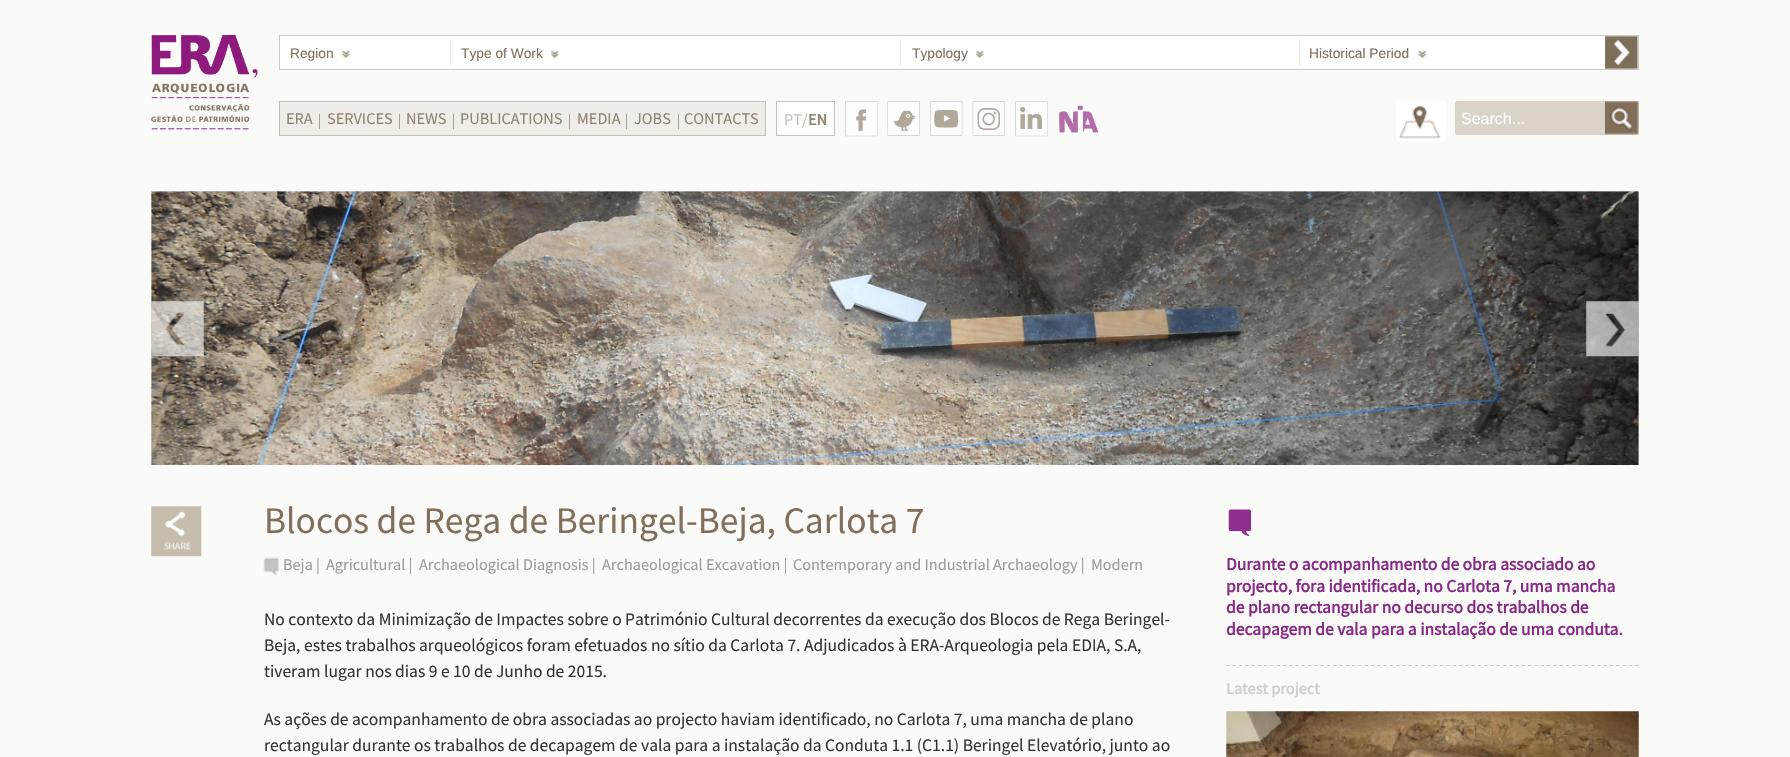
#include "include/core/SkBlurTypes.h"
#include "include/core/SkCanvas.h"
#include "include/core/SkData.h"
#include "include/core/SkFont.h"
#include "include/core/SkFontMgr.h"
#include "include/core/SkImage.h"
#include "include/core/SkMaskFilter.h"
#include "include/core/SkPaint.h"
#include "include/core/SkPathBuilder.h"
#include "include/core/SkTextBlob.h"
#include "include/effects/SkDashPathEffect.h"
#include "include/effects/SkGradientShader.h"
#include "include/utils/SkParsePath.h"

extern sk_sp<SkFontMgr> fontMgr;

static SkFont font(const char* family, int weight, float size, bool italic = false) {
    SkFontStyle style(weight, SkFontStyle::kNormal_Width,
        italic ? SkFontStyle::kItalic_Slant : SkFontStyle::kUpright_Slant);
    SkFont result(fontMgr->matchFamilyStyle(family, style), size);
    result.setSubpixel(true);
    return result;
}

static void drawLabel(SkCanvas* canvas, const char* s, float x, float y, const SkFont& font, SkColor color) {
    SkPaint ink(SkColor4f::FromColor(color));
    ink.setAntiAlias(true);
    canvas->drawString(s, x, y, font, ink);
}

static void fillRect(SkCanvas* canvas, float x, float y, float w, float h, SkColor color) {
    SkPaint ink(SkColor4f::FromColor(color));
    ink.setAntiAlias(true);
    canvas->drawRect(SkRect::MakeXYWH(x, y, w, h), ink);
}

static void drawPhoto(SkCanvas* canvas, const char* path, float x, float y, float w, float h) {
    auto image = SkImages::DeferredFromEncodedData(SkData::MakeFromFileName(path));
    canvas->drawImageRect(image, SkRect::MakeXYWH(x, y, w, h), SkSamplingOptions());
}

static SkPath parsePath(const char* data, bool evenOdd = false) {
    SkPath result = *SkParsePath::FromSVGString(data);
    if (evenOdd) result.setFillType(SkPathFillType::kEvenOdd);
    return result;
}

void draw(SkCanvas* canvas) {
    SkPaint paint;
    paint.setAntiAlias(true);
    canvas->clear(0xFFFAFAF8);
    drawPhoto(canvas, "assets/img1.png", 151, 35, 107, 95);
    paint.setColor(0xFFFFFFFF);
    canvas->drawRect(SkRect::MakeXYWH(279.5f, 35.5f, 1359, 34), paint);
    paint.setStroke(true);
    paint.setStrokeWidth(1);
    paint.setColor(0xFFCFC9C0);
    canvas->drawRect(SkRect::MakeXYWH(279.5f, 35.5f, 1359, 34), paint);
    SkFont font1 = font("Liberation Sans", 400, 13.75f);
    drawLabel(canvas, "Region", 290, 58, font1, 0xFF816F59);
    drawPhoto(canvas, "assets/img2.png", 342, 50, 9, 8);
    fillRect(canvas, 450, 39, 1, 27, 0xFFF1F0ED);
    drawLabel(canvas, "Type of Work", 461, 58, font1, 0xFF816F59);
    drawPhoto(canvas, "assets/img3.png", 551, 50, 8, 8);
    fillRect(canvas, 900, 39, 1, 27, 0xFFF1F0ED);
    drawLabel(canvas, "Typology", 912, 58, font1, 0xFF816F59);
    drawPhoto(canvas, "assets/img3.png", 976, 50, 8, 8);
    fillRect(canvas, 1299, 39, 1, 27, 0xFFF1F0ED);
    drawLabel(canvas, "Historical Period", 1309, 58, font1, 0xFF816F59);
    drawPhoto(canvas, "assets/img4.png", 1418, 50, 9, 8);
    drawPhoto(canvas, "assets/img5.png", 1605, 36, 33, 33);
    paint.setStroke(false);
    paint.setColor(0xFFF0ECE8);
    canvas->drawRect(SkRect::MakeXYWH(279.5f, 101.5f, 486, 34), paint);
    paint.setStroke(true);
    paint.setColor(0xFFC5BEB3);
    canvas->drawRect(SkRect::MakeXYWH(279.5f, 101.5f, 486, 34), paint);
    SkFont font2 = font("Source Sans Pro", 400, 16.25f);
    drawLabel(canvas, "ERA", 286, 124, font2, 0xFF8F8371);
    fillRect(canvas, 319, 114, 1, 15, 0xFFA99F90);
    drawLabel(canvas, "SERVICES", 327, 124, font2, 0xFF8F8371);
    fillRect(canvas, 399, 114, 1, 15, 0xFFA99F90);
    drawLabel(canvas, "NEWS", 406, 124, font2, 0xFF8F8371);
    fillRect(canvas, 453, 114, 1, 15, 0xFFA99F90);
    drawLabel(canvas, "PUBLICATIONS", 460, 124, font2, 0xFF8F8371);
    fillRect(canvas, 569, 114, 1, 15, 0xFFA99F90);
    drawLabel(canvas, "MEDIA", 577, 124, font2, 0xFF8F8371);
    fillRect(canvas, 626, 114, 1, 15, 0xFFA99F90);
    drawLabel(canvas, "JOBS", 634, 124, font2, 0xFF8F8371);
    fillRect(canvas, 678, 114, 1, 15, 0xFFA99F90);
    drawLabel(canvas, "CONTACTS", 684, 124, font2, 0xFF8F8371);
    paint.setStroke(false);
    paint.setColor(0xFFFEFEFD);
    canvas->drawRect(SkRect::MakeXYWH(776.5f, 101.5f, 58, 34), paint);
    paint.setStroke(true);
    paint.setColor(0xFFC7C1B7);
    canvas->drawRect(SkRect::MakeXYWH(776.5f, 101.5f, 58, 34), paint);
    drawLabel(canvas, "PT/", 784, 125, font2, 0xFFC7C1B7);
    SkFont font3 = font("Source Sans Pro", 700, 16.25f);
    drawLabel(canvas, "EN", 808, 125, font3, 0xFF8F8371);
    drawPhoto(canvas, "assets/img6.png", 845, 101, 33, 36);
    drawPhoto(canvas, "assets/img7.png", 887, 101, 33, 35);
    drawPhoto(canvas, "assets/img8.png", 930, 101, 33, 35);
    drawPhoto(canvas, "assets/img9.png", 972, 101, 33, 35);
    drawPhoto(canvas, "assets/img10.png", 1015, 101, 33, 36);
    drawPhoto(canvas, "assets/img11.png", 1059, 105, 40, 28);
    drawPhoto(canvas, "assets/img12.png", 1396, 101, 50, 40);
    paint.setStroke(false);
    paint.setColor(0xFFDAD3C8);
    canvas->drawPath(parsePath("M1457.5 101H1605V135H1457.5C1456 135 1455 134 1455 132.5V103.5C1455 102 1456 101 1457.5 101Z"), paint);
    SkFont font4 = font("Liberation Sans", 400, 16);
    drawLabel(canvas, "Search...", 1461, 124, font4, 0xFFFFFFFF);
    drawPhoto(canvas, "assets/img13.png", 1605, 101, 34, 34);
    fillRect(canvas, 151, 191, 1488, 274, 0xFFDDDDDD);
    drawPhoto(canvas, "assets/img14.png", 151, 191, 1488, 274);
    drawPhoto(canvas, "assets/img15.png", 151, 301, 53, 56);
    drawPhoto(canvas, "assets/img16.png", 1586, 301, 53, 56);
    drawPhoto(canvas, "assets/img17.png", 151, 506, 51, 51);
    SkFont font5 = font("Source Sans Pro", 400, 37.5f);
    drawLabel(canvas, "Blocos de Rega de Beringel-Beja, Carlota 7", 264, 533, font5, 0xFF816F59);
    drawPhoto(canvas, "assets/img18.png", 263, 557, 16, 18);
    drawLabel(canvas, "Beja |", 283, 570, font2, 0xFF999B9E);
    drawLabel(canvas, "Agricultural |", 326, 570, font2, 0xFF999B9E);
    drawLabel(canvas, "Archaeological Diagnosis |", 419, 570, font2, 0xFF999B9E);
    drawLabel(canvas, "Archaeological Excavation |", 602, 570, font2, 0xFF999B9E);
    drawLabel(canvas, "Contemporary and Industrial Archaeology |", 793, 570, font2, 0xFF999B9E);
    drawLabel(canvas, "Modern", 1091, 570, font2, 0xFF999B9E);
    SkFont font6 = font("Source Sans Pro", 400, 17.5f);
    drawLabel(canvas, "No contexto da Minimização de Impactes sobre o Património Cultural decorrentes da execução dos Blocos de Rega Beringel-", 264, 625, font6, 0xFF333333);
    drawLabel(canvas, "Beja, estes trabalhos arqueológicos foram efetuados no sítio da Carlota 7. Adjudicados à ERA-Arqueologia pela EDIA, S.A,", 264, 651, font6, 0xFF333333);
    drawLabel(canvas, "tiveram lugar nos dias 9 e 10 de Junho de 2015.", 264, 677, font6, 0xFF333333);
    drawLabel(canvas, "As ações de acompanhamento de obra associadas ao projecto haviam identificado, no Carlota 7, uma mancha de plano", 264, 725, font6, 0xFF333333);
    drawLabel(canvas, "rectangular durante os trabalhos de decapagem de vala para a instalação da Conduta 1.1 (C1.1) Beringel Elevatório, junto ao", 264, 751, font6, 0xFF333333);
    paint.setStroke(true);
    paint.setStrokeWidth(1.2f);
    paint.setColor(0xFFCCCCCC);
    paint.setPathEffect(SkDashPathEffect::Make({{3.75f, 2.54f}}, 0));
    canvas->drawPath(parsePath("M1226 665.5H1639"), paint);
    paint.setPathEffect(nullptr);
    drawPhoto(canvas, "assets/img19.png", 1228, 509, 23, 27);
    SkFont font7 = font("Source Sans Pro", 700, 17.5f);
    drawLabel(canvas, "Durante o acompanhamento de obra associado ao", 1226, 570, font7, 0xFF882888);
    drawLabel(canvas, "projecto, fora identificada, no Carlota 7, uma mancha", 1226, 592, font7, 0xFF882888);
    drawLabel(canvas, "de plano rectangular no decurso dos trabalhos de", 1226, 613, font7, 0xFF882888);
    drawLabel(canvas, "decapagem de vala para a instalação de uma conduta.", 1226, 635, font7, 0xFF882888);
    drawLabel(canvas, "Latest project", 1226, 694, font3, 0xFFCFCFCF);
    drawPhoto(canvas, "assets/img20.png", 1226, 711, 413, 46);
}
